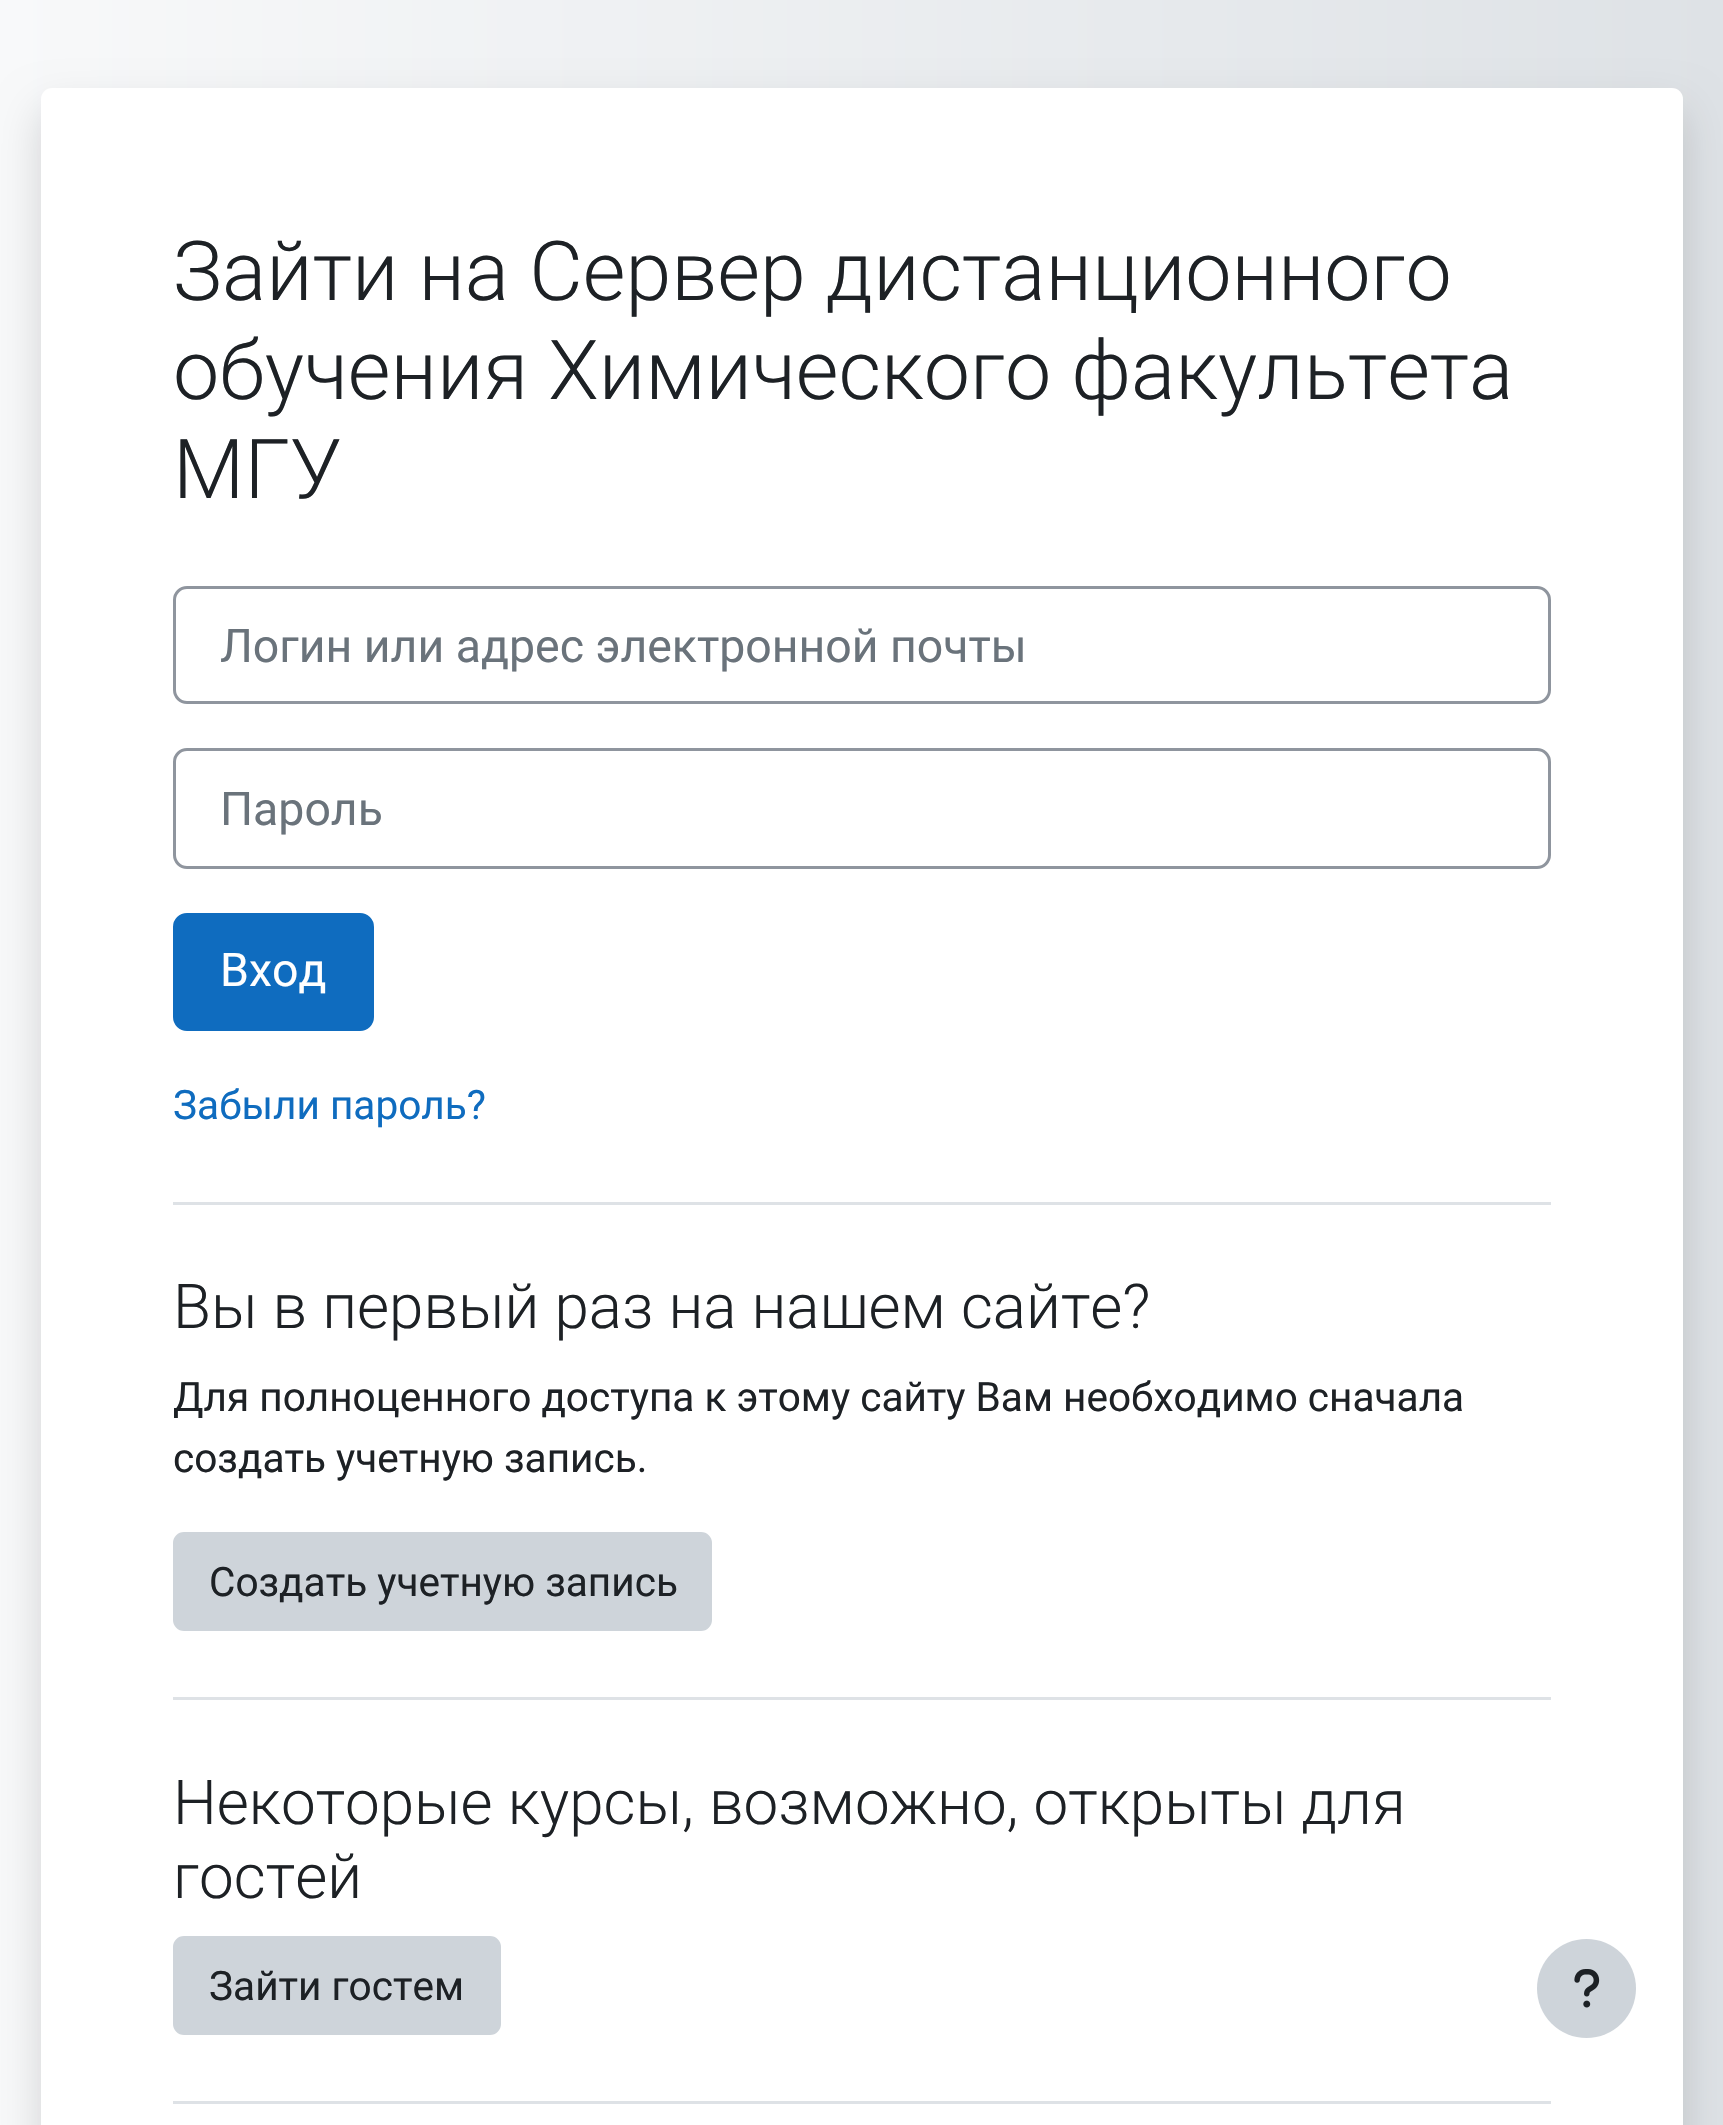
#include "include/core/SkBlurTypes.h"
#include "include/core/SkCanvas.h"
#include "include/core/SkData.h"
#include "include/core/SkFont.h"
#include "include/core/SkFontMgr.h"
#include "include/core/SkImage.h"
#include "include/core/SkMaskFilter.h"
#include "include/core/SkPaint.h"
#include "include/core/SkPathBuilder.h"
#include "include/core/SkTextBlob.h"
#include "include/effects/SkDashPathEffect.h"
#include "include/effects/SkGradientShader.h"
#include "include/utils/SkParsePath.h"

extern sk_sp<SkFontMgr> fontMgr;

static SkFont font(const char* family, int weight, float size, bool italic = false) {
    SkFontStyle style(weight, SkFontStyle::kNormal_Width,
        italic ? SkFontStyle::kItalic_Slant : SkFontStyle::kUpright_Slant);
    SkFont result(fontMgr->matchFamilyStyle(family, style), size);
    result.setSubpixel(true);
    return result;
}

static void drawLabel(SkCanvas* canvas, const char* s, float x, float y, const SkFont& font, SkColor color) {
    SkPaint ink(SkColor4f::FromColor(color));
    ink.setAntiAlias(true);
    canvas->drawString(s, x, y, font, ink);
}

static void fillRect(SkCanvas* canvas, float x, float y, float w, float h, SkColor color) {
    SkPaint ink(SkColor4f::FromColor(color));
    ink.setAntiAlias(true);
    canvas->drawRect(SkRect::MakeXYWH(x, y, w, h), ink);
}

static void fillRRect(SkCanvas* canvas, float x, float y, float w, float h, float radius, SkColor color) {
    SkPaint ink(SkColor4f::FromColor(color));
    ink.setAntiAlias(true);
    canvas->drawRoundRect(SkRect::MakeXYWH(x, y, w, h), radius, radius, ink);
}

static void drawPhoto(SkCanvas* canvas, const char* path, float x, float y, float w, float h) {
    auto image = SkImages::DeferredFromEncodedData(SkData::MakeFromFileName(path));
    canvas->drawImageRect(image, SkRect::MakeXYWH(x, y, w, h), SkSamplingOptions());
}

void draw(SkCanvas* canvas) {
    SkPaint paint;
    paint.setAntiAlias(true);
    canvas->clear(0xFFFFFFFF);
    {
        const SkColor colors[] = {0xFFF8F9FA, 0xFFDEE2E6};
        const float stops[] = {0, 1};
        const SkPoint ends[] = {{0, 1249}, {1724, 1249}};
        paint.setShader(SkGradientShader::MakeLinear(ends, colors, stops, 2, SkTileMode::kClamp));
        paint.setAlpha(255);
    }
    canvas->drawRect(SkRect::MakeXYWH(0, 0, 1723, 2125), paint);
    paint.setShader(nullptr);
    paint.setColor(0x26000000);
    paint.setMaskFilter(SkMaskFilter::MakeBlur(kNormal_SkBlurStyle, 22));
    canvas->drawRoundRect(SkRect::MakeXYWH(41, 110, 1642, 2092), 11, 11, paint);
    paint.setMaskFilter(nullptr);
    fillRRect(canvas, 41, 88, 1642, 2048, 11, 0xFFFFFFFF);
    SkFont font1 = font("Roboto", 300, 82.5f);
    drawLabel(canvas, "Зайти на Сервер дистанционного", 173, 300, font1, 0xFF1D2125);
    drawLabel(canvas, "обучения Химического факультета", 173, 399, font1, 0xFF1D2125);
    drawLabel(canvas, "МГУ", 173, 498, font1, 0xFF1D2125);
    paint.setStroke(true);
    paint.setStrokeWidth(3);
    paint.setColor(0xFF8F959E);
    canvas->drawRoundRect(SkRect::MakeXYWH(174.5f, 587.5f, 1375, 115), 12.5f, 12.5f, paint);
    SkFont font2 = font("Roboto", 400, 46.4f);
    drawLabel(canvas, "Логин или адрес электронной почты", 220, 662, font2, 0xFF6A737B);
    canvas->drawRoundRect(SkRect::MakeXYWH(174.5f, 749.5f, 1375, 118), 12.5f, 12.5f, paint);
    drawLabel(canvas, "Пароль", 220, 825, font2, 0xFF6A737B);
    paint.setStroke(false);
    paint.setColor(0xFF0F6CBF);
    canvas->drawRoundRect(SkRect::MakeXYWH(174.5f, 914.5f, 198, 115), 12.5f, 12.5f, paint);
    paint.setStroke(true);
    canvas->drawRoundRect(SkRect::MakeXYWH(174.5f, 914.5f, 198, 115), 12.5f, 12.5f, paint);
    drawLabel(canvas, "Вход", 220, 986, font2, 0xFFFFFFFF);
    SkFont font3 = font("Roboto", 400, 40.55f);
    drawLabel(canvas, "Забыли пароль?", 173, 1119, font3, 0xFF0F6CBF);
    fillRect(canvas, 173, 1202, 1378, 3, 0xFFDEE2E6);
    SkFont font4 = font("Roboto", 300, 61.9f);
    drawLabel(canvas, "Вы в первый раз на нашем сайте?", 173, 1328, font4, 0xFF1D2125);
    drawLabel(canvas, "Для полноценного доступа к этому сайту Вам необходимо сначала", 173, 1411, font3, 0xFF1D2125);
    drawLabel(canvas, "создать учетную запись.", 173, 1472, font3, 0xFF1D2125);
    paint.setStroke(false);
    paint.setColor(0xFFCED4DA);
    canvas->drawRoundRect(SkRect::MakeXYWH(174.5f, 1533.5f, 536, 96), 9.5f, 9.5f, paint);
    paint.setStroke(true);
    canvas->drawRoundRect(SkRect::MakeXYWH(174.5f, 1533.5f, 536, 96), 9.5f, 9.5f, paint);
    drawLabel(canvas, "Создать учетную запись", 209, 1596, font3, 0xFF1D2125);
    fillRect(canvas, 173, 1697, 1378, 3, 0xFFDEE2E6);
    drawLabel(canvas, "Некоторые курсы, возможно, открыты для", 173, 1824, font4, 0xFF1D2125);
    drawLabel(canvas, "гостей", 173, 1898, font4, 0xFF1D2125);
    paint.setStroke(false);
    canvas->drawRoundRect(SkRect::MakeXYWH(174.5f, 1937.5f, 325, 96), 9.5f, 9.5f, paint);
    paint.setStroke(true);
    canvas->drawRoundRect(SkRect::MakeXYWH(174.5f, 1937.5f, 325, 96), 9.5f, 9.5f, paint);
    drawLabel(canvas, "Зайти гостем", 209, 2000, font3, 0xFF1D2125);
    fillRect(canvas, 173, 2101, 1378, 3, 0xFFDEE2E6);
    paint.setStroke(false);
    canvas->drawCircle(1586.5f, 1988.5f, 49.5f, paint);
    drawPhoto(canvas, "assets/img1.png", 1574, 1969, 26, 39);
}
